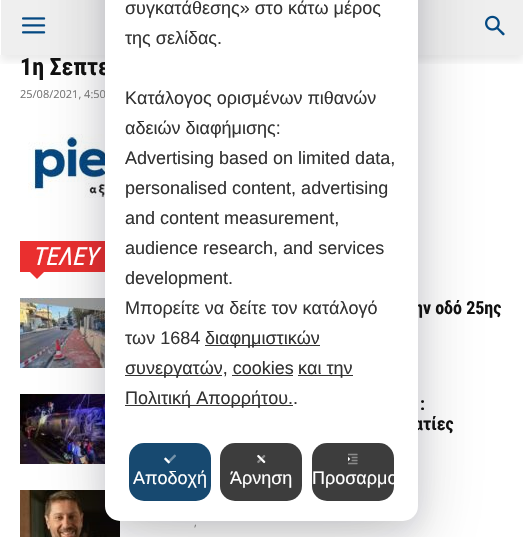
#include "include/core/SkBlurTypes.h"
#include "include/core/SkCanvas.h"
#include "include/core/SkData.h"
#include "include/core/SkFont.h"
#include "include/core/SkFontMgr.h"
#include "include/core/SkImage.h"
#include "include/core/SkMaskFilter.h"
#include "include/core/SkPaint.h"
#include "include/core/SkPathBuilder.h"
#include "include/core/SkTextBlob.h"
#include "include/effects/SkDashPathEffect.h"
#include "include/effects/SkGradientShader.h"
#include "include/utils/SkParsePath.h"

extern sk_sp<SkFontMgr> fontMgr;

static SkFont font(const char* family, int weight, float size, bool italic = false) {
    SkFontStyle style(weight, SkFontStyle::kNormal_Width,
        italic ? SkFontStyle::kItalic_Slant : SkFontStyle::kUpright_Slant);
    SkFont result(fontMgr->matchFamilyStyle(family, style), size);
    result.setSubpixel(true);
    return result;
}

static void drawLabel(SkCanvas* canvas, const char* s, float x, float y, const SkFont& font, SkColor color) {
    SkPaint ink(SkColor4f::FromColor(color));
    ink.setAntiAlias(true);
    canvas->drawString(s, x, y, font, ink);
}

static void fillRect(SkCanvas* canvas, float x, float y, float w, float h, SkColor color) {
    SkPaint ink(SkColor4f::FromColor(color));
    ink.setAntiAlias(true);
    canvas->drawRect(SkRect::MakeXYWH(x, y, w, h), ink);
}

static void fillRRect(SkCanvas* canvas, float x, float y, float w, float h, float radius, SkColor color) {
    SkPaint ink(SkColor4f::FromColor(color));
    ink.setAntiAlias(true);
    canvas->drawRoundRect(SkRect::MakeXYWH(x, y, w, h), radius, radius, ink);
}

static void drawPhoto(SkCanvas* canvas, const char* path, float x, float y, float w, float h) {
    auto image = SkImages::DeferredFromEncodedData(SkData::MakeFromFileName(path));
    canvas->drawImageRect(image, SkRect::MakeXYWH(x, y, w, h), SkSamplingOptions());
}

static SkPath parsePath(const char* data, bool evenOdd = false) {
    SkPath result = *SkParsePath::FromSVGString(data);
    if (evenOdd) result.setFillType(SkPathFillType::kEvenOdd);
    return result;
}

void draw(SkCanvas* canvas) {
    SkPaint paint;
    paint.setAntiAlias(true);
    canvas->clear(0xFFFFFFFF);
    fillRect(canvas, 1, 0, 522, 55, 0xFFEFEFEF);
    drawPhoto(canvas, "assets/img4.png", 22, 17, 24, 17);
    drawPhoto(canvas, "assets/img5.png", 485, 15, 20, 21);
    drawPhoto(canvas, "assets/img6.png", 28, 134, 77, 64);
    fillRect(canvas, 20, 241, 85, 31, 0xFFEA2E2E);
    paint.setColor(0xFFEA2E2E);
    canvas->drawPath(parsePath("M30 272H44L37 279Z"), paint);
    drawPhoto(canvas, "assets/img7.png", 20, 298, 85, 70);
    drawPhoto(canvas, "assets/img8.png", 20, 394, 85, 70);
    drawPhoto(canvas, "assets/img9.png", 20, 490, 100, 47);
    paint.setColor(0x1A11111A);
    paint.setMaskFilter(SkMaskFilter::MakeBlur(kNormal_SkBlurStyle, 40));
    canvas->drawRoundRect(SkRect::MakeXYWH(105, -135, 313, 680), 15, 15, paint);
    paint.setMaskFilter(nullptr);
    paint.setMaskFilter(SkMaskFilter::MakeBlur(kNormal_SkBlurStyle, 28));
    canvas->drawRoundRect(SkRect::MakeXYWH(105, -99, 313, 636), 15, 15, paint);
    paint.setMaskFilter(nullptr);
    paint.setMaskFilter(SkMaskFilter::MakeBlur(kNormal_SkBlurStyle, 12));
    canvas->drawRoundRect(SkRect::MakeXYWH(105, -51, 313, 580), 15, 15, paint);
    paint.setMaskFilter(nullptr);
    canvas->save();
    canvas->clipRect(SkRect::MakeXYWH(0, 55, 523, 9));
    paint.setColor(0x14000000);
    paint.setMaskFilter(SkMaskFilter::MakeBlur(kNormal_SkBlurStyle, 4));
    canvas->drawRect(SkRect::MakeXYWH(1, 6, 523, 55), paint);
    paint.setMaskFilter(nullptr);
    canvas->restore();
    SkFont font1 = font("Roboto Condensed", 700, 24);
    drawLabel(canvas, "1η Σεπτε", 20, 75, font1, 0xFF111111);
    SkFont font2 = font("Open Sans", 400, 11);
    drawLabel(canvas, "25/08/2021, 4:50", 20, 98, font2, 0xFF767676);
    SkFont font3 = font("Roboto Condensed", 700, 18);
    drawLabel(canvas, "ην οδό 25ης", 414, 314, font3, 0xFF111111);
    drawLabel(canvas, "ατίες", 414, 430, font3, 0xFF111111);
    fillRRect(canvas, 105, -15, 313, 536, 15, 0xFFFFFFFF);
    SkFont font4 = font("Liberation Sans", 400, 18);
    drawLabel(canvas, "συγκατάθεσης» στο κάτω μέρος", 125, 14, font4, 0xFF333333);
    drawLabel(canvas, "της σελίδας.", 125, 44, font4, 0xFF333333);
    drawLabel(canvas, "Κατάλογος ορισμένων πιθανών", 125, 104, font4, 0xFF333333);
    drawLabel(canvas, "αδειών διαφήμισης:", 125, 134, font4, 0xFF333333);
    drawLabel(canvas, "Advertising based on limited data,", 125, 164, font4, 0xFF333333);
    drawLabel(canvas, "personalised content, advertising", 125, 194, font4, 0xFF333333);
    drawLabel(canvas, "and content measurement,", 125, 224, font4, 0xFF333333);
    drawLabel(canvas, "audience research, and services", 125, 254, font4, 0xFF333333);
    drawLabel(canvas, "development.", 125, 284, font4, 0xFF333333);
    drawLabel(canvas, "Μπορείτε να δείτε τον κατάλογό", 125, 314, font4, 0xFF333333);
    drawLabel(canvas, "των 1684", 125, 344, font4, 0xFF333333);
    fillRect(canvas, 205, 345, 115, 1, 0xFF333333);
    drawLabel(canvas, "διαφημιστικών", 205, 344, font4, 0xFF333333);
    fillRect(canvas, 125, 375, 97, 1, 0xFF333333);
    drawLabel(canvas, "συνεργατών, cookies", 125, 374, font4, 0xFF333333);
    fillRect(canvas, 298, 375, 55, 1, 0xFF333333);
    drawLabel(canvas, "και την", 298, 374, font4, 0xFF333333);
    fillRect(canvas, 232, 375, 61, 1, 0xFF333333);
    fillRect(canvas, 125, 405, 168, 1, 0xFF333333);
    drawLabel(canvas, "Πολιτική Απορρήτου..", 125, 404, font4, 0xFF333333);
    fillRRect(canvas, 129, 443, 82, 58, 15, 0xFF174970);
    drawPhoto(canvas, "assets/img1.png", 164, 454, 12, 10);
    drawLabel(canvas, "Αποδοχή", 133, 484, font4, 0xFFFFFFFF);
    fillRRect(canvas, 220, 443, 82, 58, 15, 0xFF3D3D3D);
    drawPhoto(canvas, "assets/img2.png", 257, 454, 9, 10);
    drawLabel(canvas, "Άρνηση", 230, 484, font4, 0xFFFFFFFF);
    fillRRect(canvas, 312, 443, 82, 58, 15, 0xFF3D3D3D);
    drawPhoto(canvas, "assets/img3.png", 348, 453, 10, 12);
    drawLabel(canvas, "Προσαρμο", 312, 484, font4, 0xFFFFFFFF);
    SkFont font5 = font("Roboto Condensed", 400, 25, true);
    drawLabel(canvas, "ΤΕΛΕΥ", 32, 265, font5, 0xFFFFFFFF);
    drawLabel(canvas, ":", 420, 410, font3, 0xFF111111);
    drawLabel(canvas, ",", 194, 526, font2, 0xFF767676);
}
